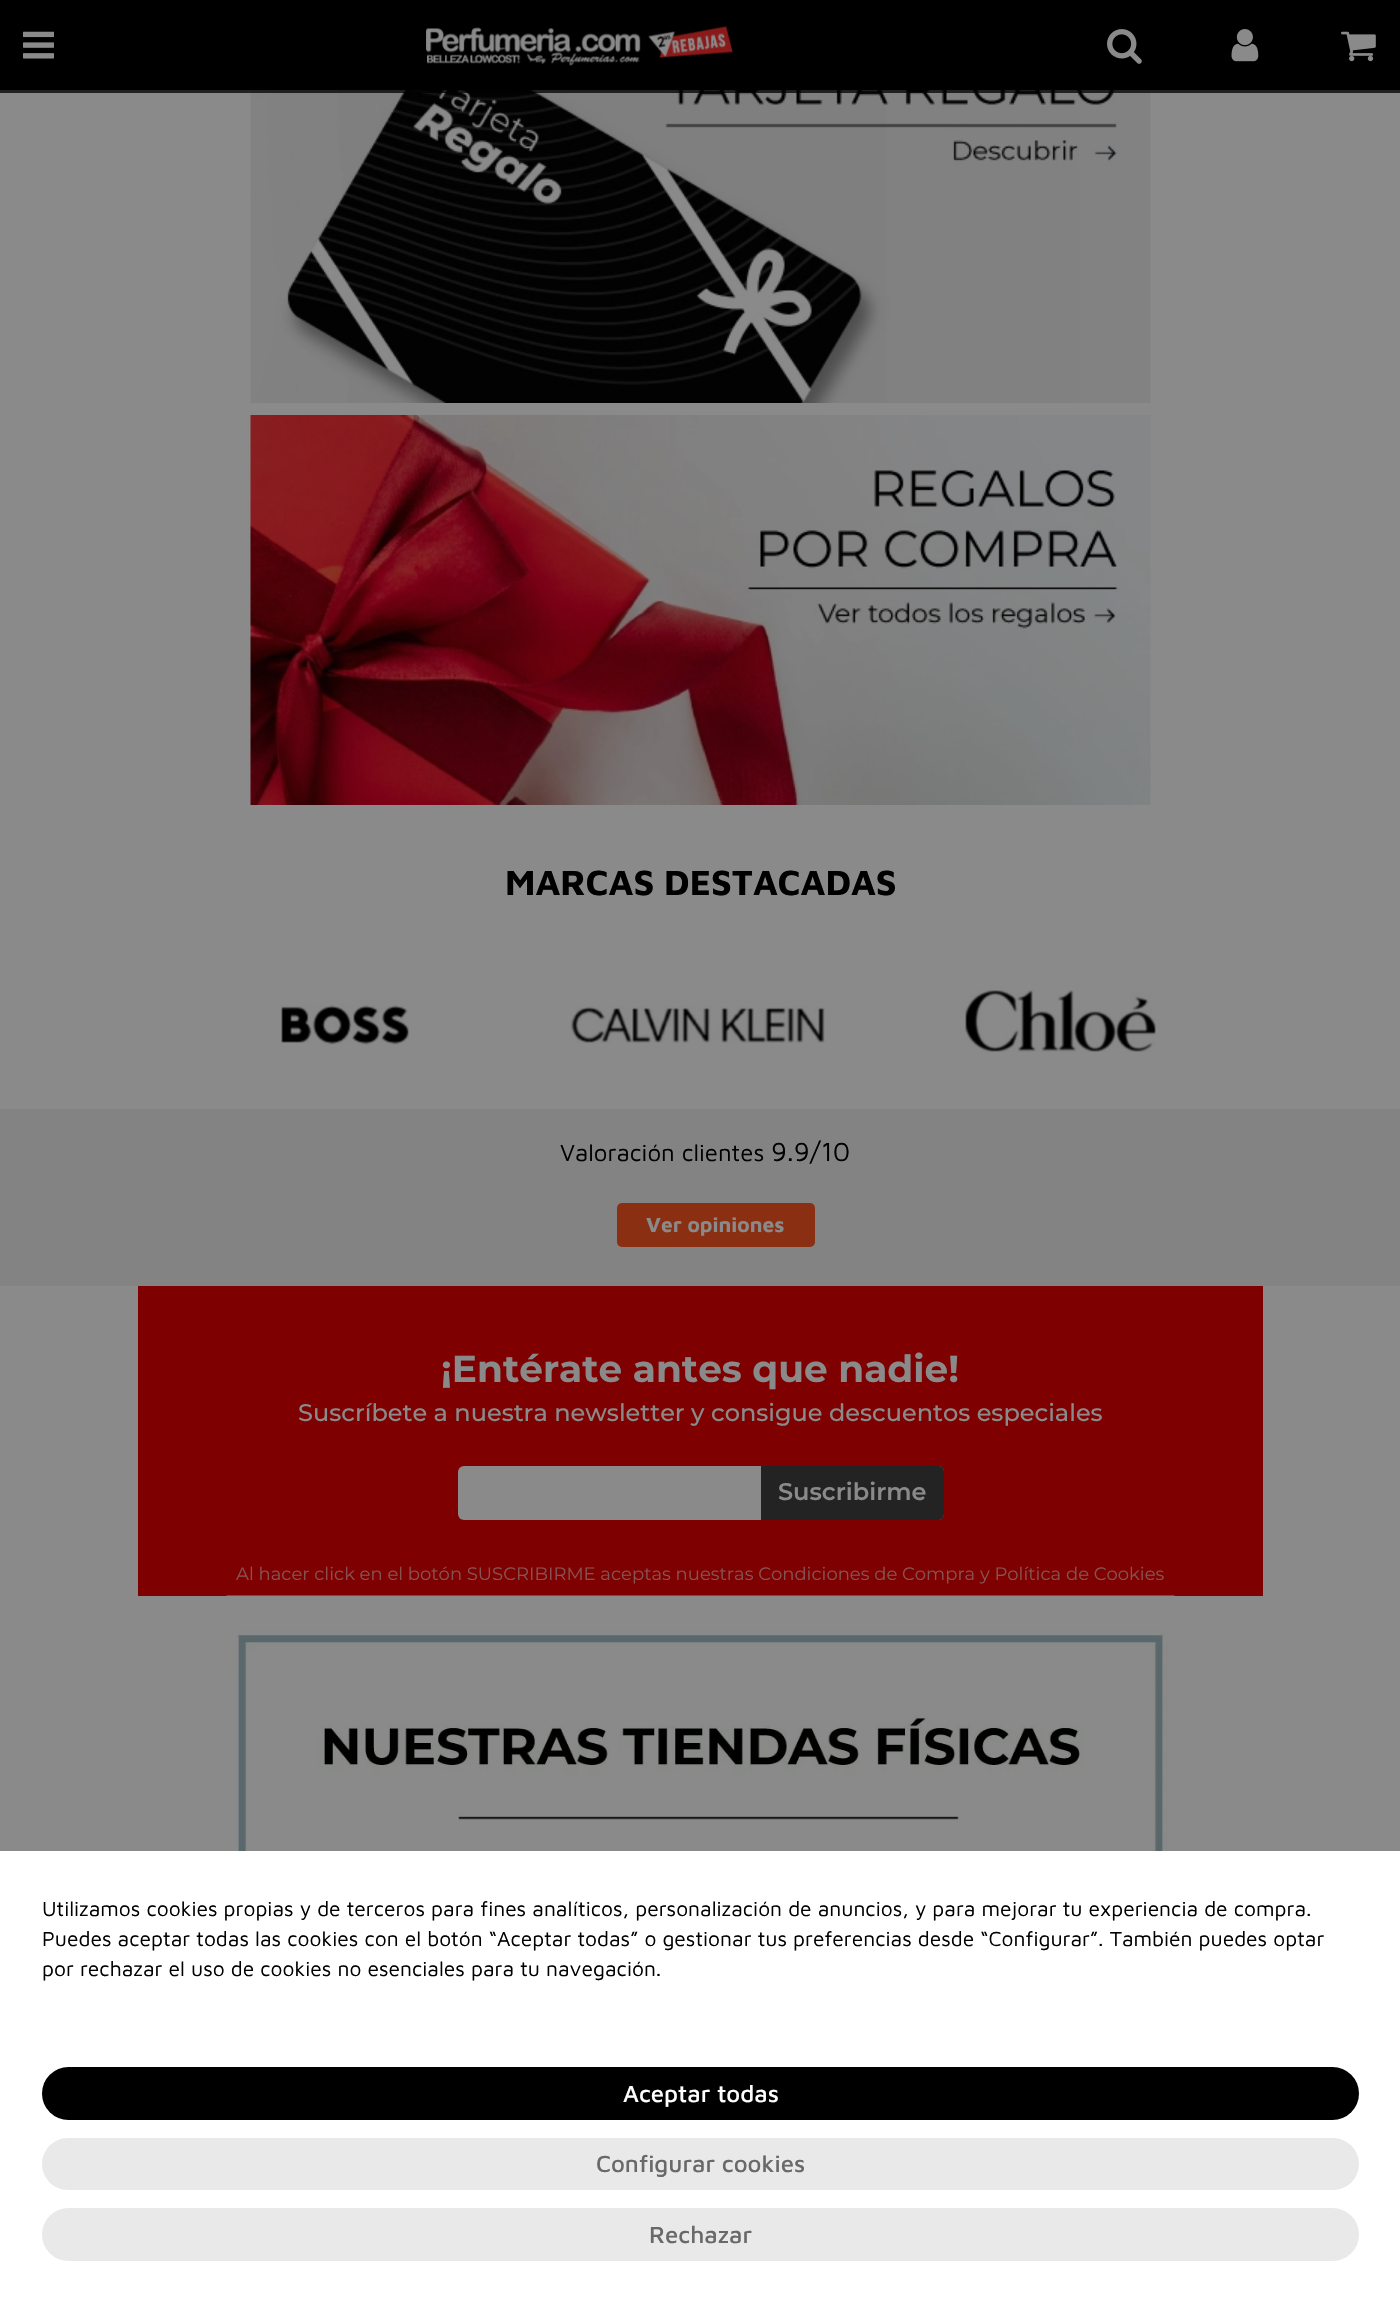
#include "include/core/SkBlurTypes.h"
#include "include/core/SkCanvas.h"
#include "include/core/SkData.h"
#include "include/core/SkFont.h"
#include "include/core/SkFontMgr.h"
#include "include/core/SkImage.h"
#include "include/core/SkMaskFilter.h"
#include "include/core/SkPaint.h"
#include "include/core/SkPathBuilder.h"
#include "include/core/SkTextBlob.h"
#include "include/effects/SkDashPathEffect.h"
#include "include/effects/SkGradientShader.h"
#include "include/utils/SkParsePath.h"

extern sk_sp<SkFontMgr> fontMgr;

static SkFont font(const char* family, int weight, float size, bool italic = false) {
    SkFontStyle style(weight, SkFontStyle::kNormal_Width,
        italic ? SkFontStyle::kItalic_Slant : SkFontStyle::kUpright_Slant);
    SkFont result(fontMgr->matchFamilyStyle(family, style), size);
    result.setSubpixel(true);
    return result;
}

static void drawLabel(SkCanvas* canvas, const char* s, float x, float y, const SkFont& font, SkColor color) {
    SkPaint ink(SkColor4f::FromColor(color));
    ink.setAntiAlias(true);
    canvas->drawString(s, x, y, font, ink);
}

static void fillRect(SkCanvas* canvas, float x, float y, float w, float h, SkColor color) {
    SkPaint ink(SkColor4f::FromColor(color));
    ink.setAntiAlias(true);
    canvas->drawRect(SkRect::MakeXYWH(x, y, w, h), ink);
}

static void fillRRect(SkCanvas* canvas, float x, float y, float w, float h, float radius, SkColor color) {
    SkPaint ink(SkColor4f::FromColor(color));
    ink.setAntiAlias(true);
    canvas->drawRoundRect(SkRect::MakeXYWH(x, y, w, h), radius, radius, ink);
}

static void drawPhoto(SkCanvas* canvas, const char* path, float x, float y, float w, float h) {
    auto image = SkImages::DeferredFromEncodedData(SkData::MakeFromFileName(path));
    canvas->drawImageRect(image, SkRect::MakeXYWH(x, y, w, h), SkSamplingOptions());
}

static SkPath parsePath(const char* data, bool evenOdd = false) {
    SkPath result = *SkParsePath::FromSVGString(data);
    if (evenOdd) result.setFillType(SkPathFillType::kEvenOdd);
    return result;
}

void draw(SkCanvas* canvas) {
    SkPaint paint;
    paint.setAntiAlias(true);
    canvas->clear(0xFF8A8A8A);
    drawPhoto(canvas, "assets/img6.png", 250, 90, 901, 313);
    paint.setColor(0xBF000000);
    canvas->drawPath(parsePath("M-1 0V93H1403V0H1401V90H0V0Z"), paint);
    fillRect(canvas, 0, 0, 1400, 90, 0xFF000000);
    drawPhoto(canvas, "assets/img1.png", 23, 31, 31, 28);
    drawPhoto(canvas, "assets/img2.png", 426, 25, 307, 41);
    drawPhoto(canvas, "assets/img3.png", 1107, 29, 35, 35);
    drawPhoto(canvas, "assets/img4.png", 1231, 29, 28, 33);
    drawPhoto(canvas, "assets/img5.png", 1341, 31, 35, 31);
    drawPhoto(canvas, "assets/img7.png", 250, 415, 901, 390);
    SkFont font1 = font("Maven Pro", 700, 36);
    drawLabel(canvas, "MARCAS DESTACADAS", 505, 895, font1, 0xFF000000);
    drawPhoto(canvas, "assets/img8.png", 281, 1005, 128, 40);
    drawPhoto(canvas, "assets/img9.png", 570, 1006, 255, 37);
    drawPhoto(canvas, "assets/img10.png", 965, 990, 191, 62);
    fillRect(canvas, 0, 1109, 1400, 177, 0xFF838383);
    SkFont font2 = font("Maven Pro", 400, 24);
    drawLabel(canvas, "Valoración clientes", 560, 1161, font2, 0xFF000000);
    SkFont font3 = font("Maven Pro", 400, 27);
    drawLabel(canvas, "9.9/10", 771, 1161, font3, 0xFF000000);
    fillRRect(canvas, 617, 1203, 198, 44, 5, 0xFF8A2F12);
    SkFont font4 = font("Maven Pro", 700, 21);
    drawLabel(canvas, "Ver opiniones", 646, 1232, font4, 0xFF8A8A8A);
    fillRect(canvas, 138, 1286, 1125, 310, 0xFF7F0000);
    SkFont font5 = font("Montserrat", 700, 37.5f);
    drawLabel(canvas, "¡Entérate antes que nadie!", 441, 1382, font5, 0xFF8A8A8A);
    SkFont font6 = font("Montserrat", 500, 24);
    drawLabel(canvas, "Suscríbete a nuestra newsletter y consigue descuentos especiales", 298, 1421, font6, 0xFF8A8A8A);
    fillRRect(canvas, 458, 1466, 486, 54, 6, 0xFF8A8A8A);
    paint.setColor(0xFF232323);
    canvas->drawPath(parsePath("M761 1466H938C941.5 1466 944 1468.5 944 1472V1514C944 1517.5 941.5 1520 938 1520H761Z"), paint);
    SkFont font7 = font("Montserrat", 600, 24);
    drawLabel(canvas, "Suscribirme", 778, 1500, font7, 0xFF8A8A8A);
    SkFont font8 = font("Montserrat", 400, 18);
    drawLabel(canvas, "Al hacer click en el botón SUSCRIBIRME aceptas nuestras Condiciones de Compra y Política de Cookies", 236, 1580, font8, 0xFF855353);
    drawPhoto(canvas, "assets/img11.png", 226, 1595, 949, 256);
    fillRect(canvas, 0, 1851, 1400, 460, 0xFFFFFFFF);
    SkFont font9 = font("Maven Pro", 400, 21);
    drawLabel(canvas, "Utilizamos cookies propias y de terceros para fines analíticos, personalización de anuncios, y para mejorar tu experiencia de compra.", 42, 1916, font9, 0xFF000000);
    drawLabel(canvas, "Puedes aceptar todas las cookies con el botón “Aceptar todas” o gestionar tus preferencias desde “Configurar”. También puedes optar", 42, 1946, font9, 0xFF000000);
    drawLabel(canvas, "por rechazar el uso de cookies no esenciales para tu navegación.", 42, 1976, font9, 0xFF000000);
    fillRRect(canvas, 42, 2067, 1317, 53, 26.5f, 0xFF000000);
    SkFont font10 = font("Maven Pro", 500, 24);
    drawLabel(canvas, "Aceptar todas", 623, 2102, font10, 0xFFFFFFFF);
    fillRRect(canvas, 42, 2138, 1317, 52, 26, 0xFFE9E9E9);
    drawLabel(canvas, "Configurar cookies", 596, 2172, font10, 0xFF696969);
    fillRRect(canvas, 42, 2208, 1317, 53, 26.5f, 0xFFE9E9E9);
    drawLabel(canvas, "Rechazar", 649, 2243, font10, 0xFF696969);
}
